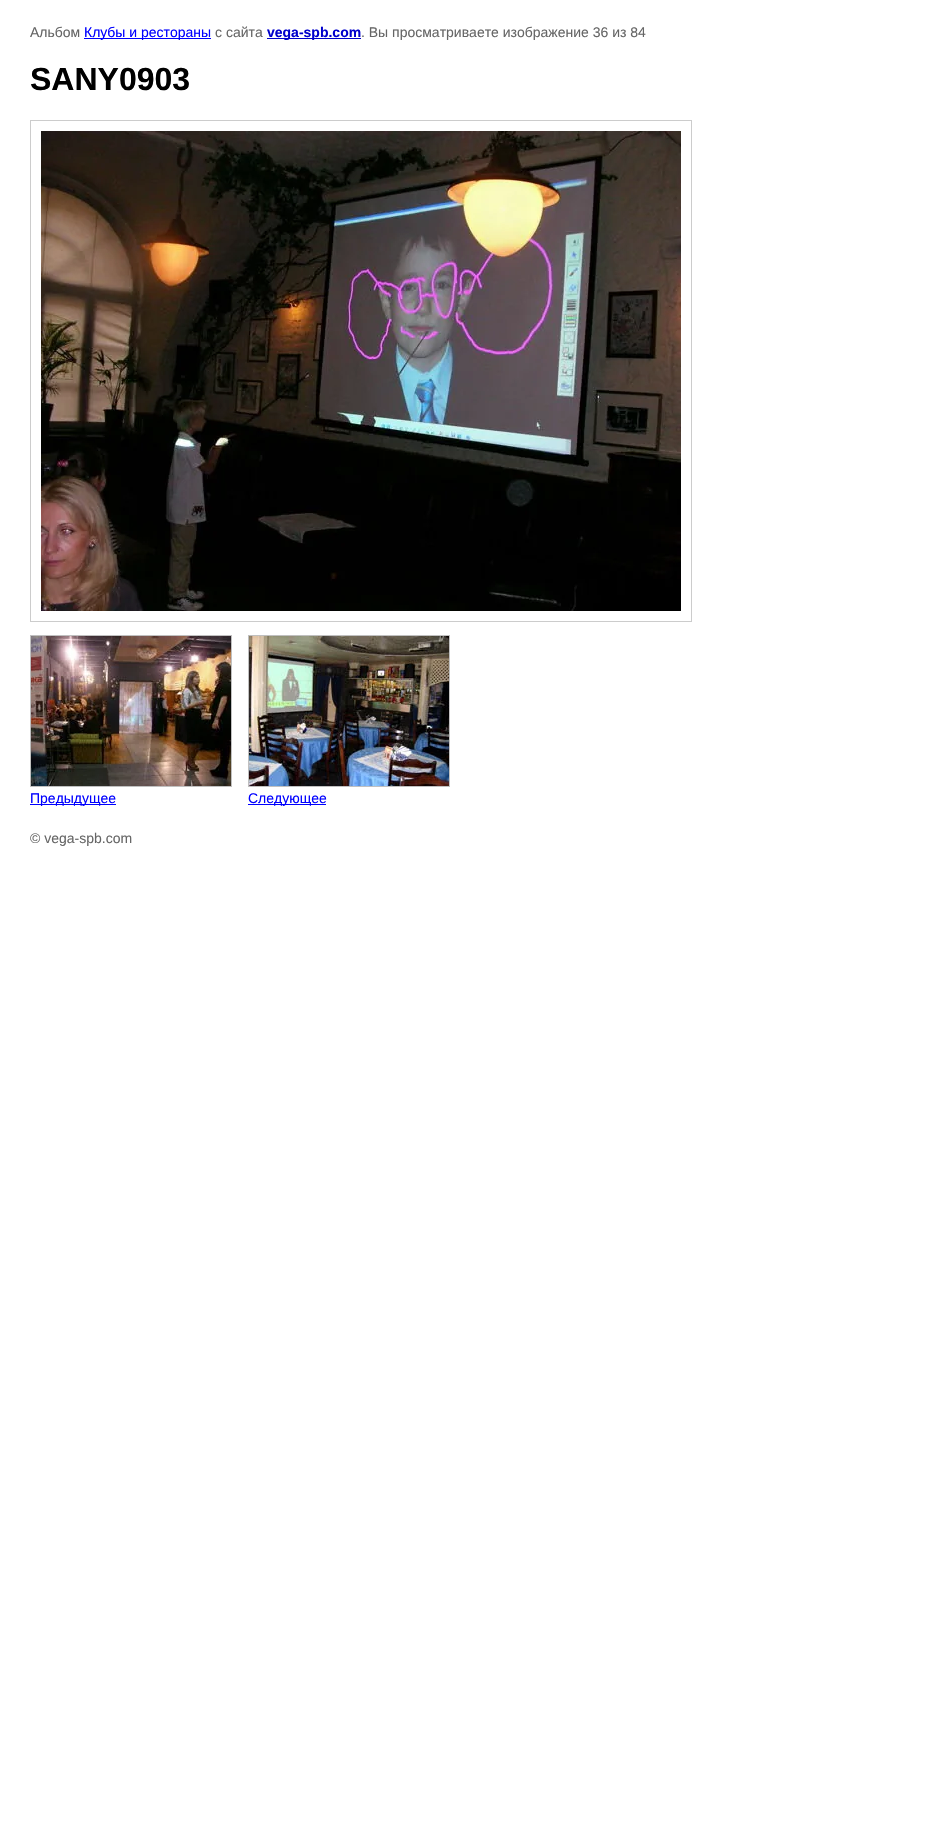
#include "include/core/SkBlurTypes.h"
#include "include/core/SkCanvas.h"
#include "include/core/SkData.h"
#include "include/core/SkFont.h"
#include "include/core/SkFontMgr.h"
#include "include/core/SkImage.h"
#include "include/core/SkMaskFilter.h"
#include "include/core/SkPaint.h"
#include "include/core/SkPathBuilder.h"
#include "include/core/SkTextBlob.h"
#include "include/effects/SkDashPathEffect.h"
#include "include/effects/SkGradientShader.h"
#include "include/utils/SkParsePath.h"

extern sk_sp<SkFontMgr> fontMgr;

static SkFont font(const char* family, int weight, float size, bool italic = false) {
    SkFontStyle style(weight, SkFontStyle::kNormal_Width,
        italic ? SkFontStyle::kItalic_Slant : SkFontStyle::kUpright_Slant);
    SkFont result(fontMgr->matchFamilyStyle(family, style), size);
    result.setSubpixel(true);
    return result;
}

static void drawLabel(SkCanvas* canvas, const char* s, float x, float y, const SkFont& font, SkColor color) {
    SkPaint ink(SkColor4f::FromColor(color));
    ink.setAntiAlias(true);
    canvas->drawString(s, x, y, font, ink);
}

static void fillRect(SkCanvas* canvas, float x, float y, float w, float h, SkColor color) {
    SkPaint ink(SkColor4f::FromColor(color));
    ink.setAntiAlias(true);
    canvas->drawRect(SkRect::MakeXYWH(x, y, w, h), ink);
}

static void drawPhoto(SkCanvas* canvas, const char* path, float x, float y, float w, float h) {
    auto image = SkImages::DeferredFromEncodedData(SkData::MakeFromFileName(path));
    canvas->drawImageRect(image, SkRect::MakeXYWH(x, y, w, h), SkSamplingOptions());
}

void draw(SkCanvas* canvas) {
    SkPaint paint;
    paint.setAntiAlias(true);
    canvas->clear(0xFFFFFFFF);
    SkFont font1 = font("Liberation Sans", 400, 14);
    drawLabel(canvas, "Альбом", 30, 37, font1, 0xFF666666);
    fillRect(canvas, 84, 38, 127, 1, 0xFF0000FF);
    drawLabel(canvas, "Клубы и рестораны", 84, 37, font1, 0xFF0000FF);
    drawLabel(canvas, "с сайта", 215, 37, font1, 0xFF666666);
    fillRect(canvas, 267, 38, 94, 1, 0xFF0000CC);
    SkFont font2 = font("Liberation Sans", 700, 14);
    drawLabel(canvas, "vega-spb.com", 267, 37, font2, 0xFF0000CC);
    drawLabel(canvas, ". Вы просматриваете изображение 36 из 84", 361, 37, font1, 0xFF666666);
    SkFont font3 = font("Liberation Sans", 700, 32);
    drawLabel(canvas, "SANY0903", 30, 90, font3, 0xFF000000);
    paint.setStroke(true);
    paint.setStrokeWidth(1);
    paint.setColor(0xFFCCCCCC);
    canvas->drawRect(SkRect::MakeXYWH(30.5f, 120.5f, 661, 501), paint);
    drawPhoto(canvas, "assets/img1.png", 41, 131, 640, 480);
    paint.setColor(0xFFC0C0C0);
    canvas->drawRect(SkRect::MakeXYWH(30.5f, 635.5f, 201, 151), paint);
    drawPhoto(canvas, "assets/img2.png", 31, 636, 200, 150);
    fillRect(canvas, 30, 804, 86, 1, 0xFF0000FF);
    drawLabel(canvas, "Предыдущее", 30, 803, font1, 0xFF0000FF);
    canvas->drawRect(SkRect::MakeXYWH(248.5f, 635.5f, 201, 151), paint);
    drawPhoto(canvas, "assets/img3.png", 249, 636, 200, 150);
    fillRect(canvas, 248, 804, 78, 1, 0xFF0000FF);
    drawLabel(canvas, "Следующее", 248, 803, font1, 0xFF0000FF);
    drawLabel(canvas, "© vega-spb.com", 30, 843, font1, 0xFF666666);
}
